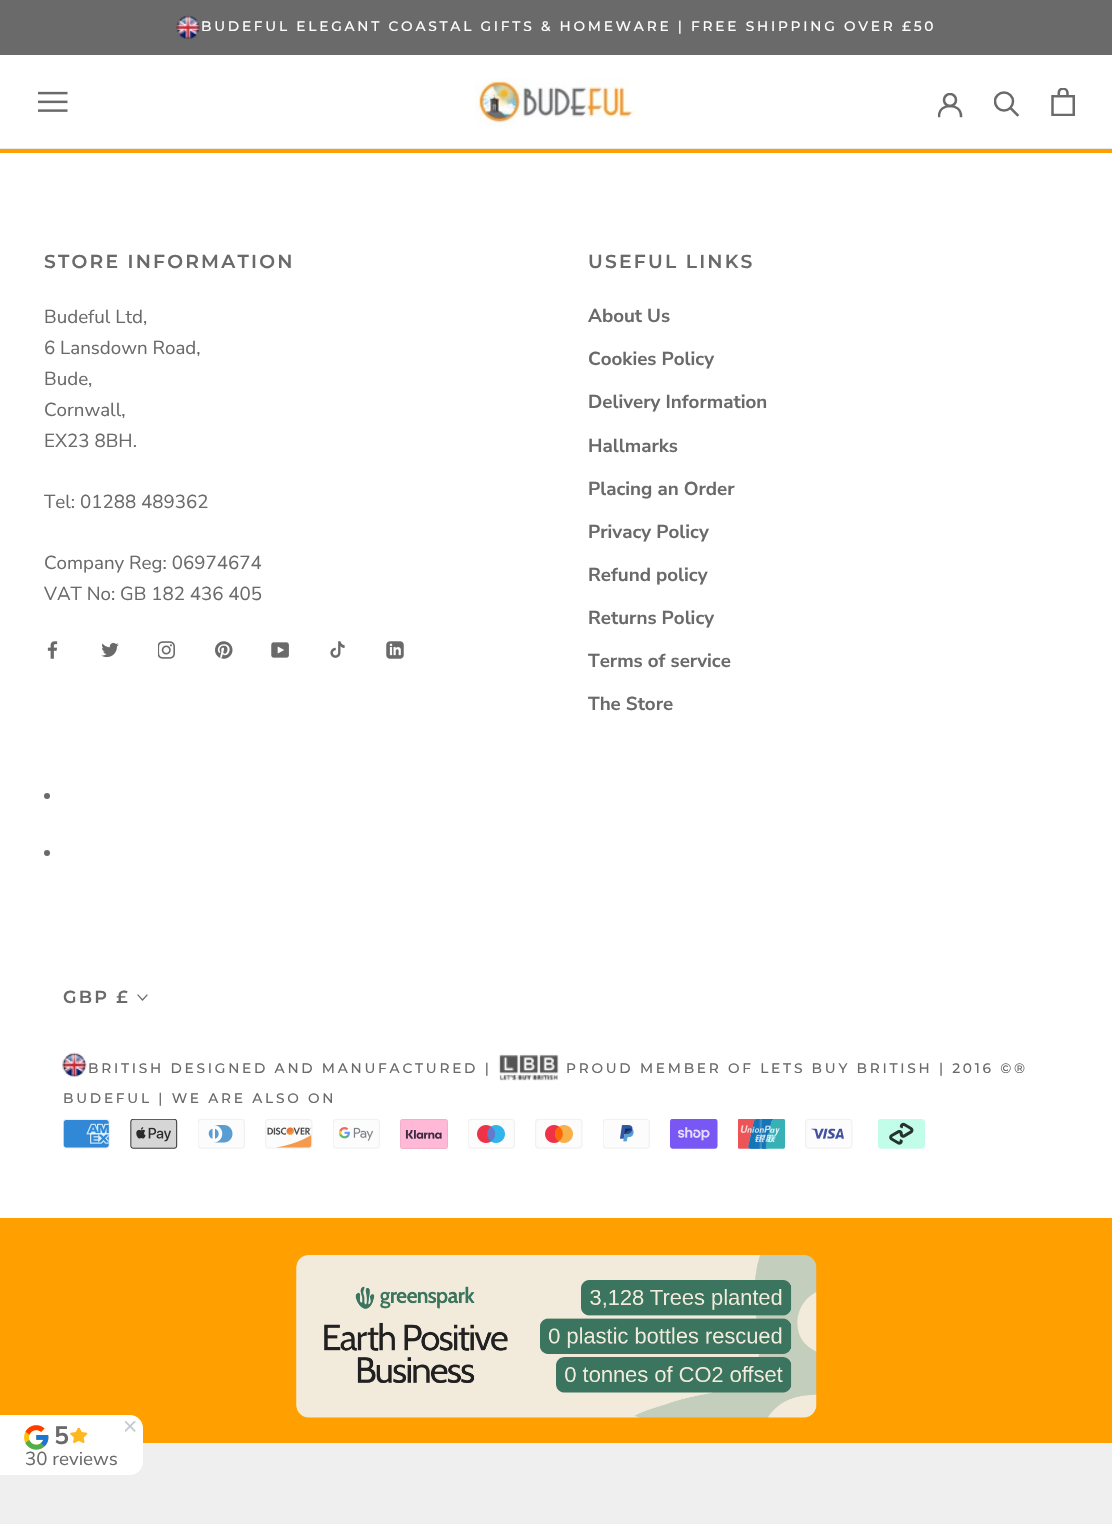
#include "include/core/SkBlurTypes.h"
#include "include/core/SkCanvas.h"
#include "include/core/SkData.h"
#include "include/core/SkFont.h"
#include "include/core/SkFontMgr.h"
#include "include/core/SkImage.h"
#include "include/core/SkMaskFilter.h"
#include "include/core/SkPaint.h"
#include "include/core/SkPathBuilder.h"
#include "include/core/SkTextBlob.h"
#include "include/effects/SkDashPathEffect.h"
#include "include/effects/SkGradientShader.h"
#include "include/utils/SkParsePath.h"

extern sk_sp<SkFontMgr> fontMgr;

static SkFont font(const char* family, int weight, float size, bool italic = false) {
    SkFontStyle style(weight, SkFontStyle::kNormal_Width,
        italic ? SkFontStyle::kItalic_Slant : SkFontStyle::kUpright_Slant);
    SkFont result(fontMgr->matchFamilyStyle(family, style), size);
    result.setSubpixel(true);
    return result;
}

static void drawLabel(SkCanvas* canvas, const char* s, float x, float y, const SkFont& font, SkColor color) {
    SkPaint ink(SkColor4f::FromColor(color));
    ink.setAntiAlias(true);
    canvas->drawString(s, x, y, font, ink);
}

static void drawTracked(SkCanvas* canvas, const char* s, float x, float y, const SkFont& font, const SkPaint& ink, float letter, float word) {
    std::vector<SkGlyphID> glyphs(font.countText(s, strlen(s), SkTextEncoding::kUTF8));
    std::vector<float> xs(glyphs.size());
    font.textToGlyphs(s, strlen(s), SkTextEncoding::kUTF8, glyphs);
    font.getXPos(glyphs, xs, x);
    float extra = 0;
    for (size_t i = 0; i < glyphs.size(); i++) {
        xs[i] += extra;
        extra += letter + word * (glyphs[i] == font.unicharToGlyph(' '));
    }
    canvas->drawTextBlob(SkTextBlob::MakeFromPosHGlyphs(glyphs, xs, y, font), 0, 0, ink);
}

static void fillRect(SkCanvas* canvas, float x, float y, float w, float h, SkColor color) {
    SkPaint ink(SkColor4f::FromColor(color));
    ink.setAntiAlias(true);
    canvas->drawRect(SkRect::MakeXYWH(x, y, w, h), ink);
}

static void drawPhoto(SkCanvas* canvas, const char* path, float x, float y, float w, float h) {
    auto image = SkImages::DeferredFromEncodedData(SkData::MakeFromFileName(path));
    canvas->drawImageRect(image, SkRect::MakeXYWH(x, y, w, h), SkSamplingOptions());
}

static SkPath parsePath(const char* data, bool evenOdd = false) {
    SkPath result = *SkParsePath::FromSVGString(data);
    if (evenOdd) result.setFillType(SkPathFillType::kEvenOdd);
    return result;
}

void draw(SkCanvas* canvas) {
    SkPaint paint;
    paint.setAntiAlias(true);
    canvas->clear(0xFFEFEFEF);
    fillRect(canvas, 0, 0, 1112, 55, 0xFF6A6A6A);
    drawPhoto(canvas, "assets/img1.png", 176, 15, 24, 24);
    SkFont font1 = font("Montserrat", 500, 13.75f);
    paint.setColor(0xFFFFFFFF);
    drawTracked(canvas, "BUDEFUL ELEGANT COASTAL GIFTS & HOMEWARE | FREE SHIPPING OVER £50", 201, 31, font1, paint, 2.75f, 0);
    fillRect(canvas, 0, 55, 1112, 93, 0xFFFFFFFF);
    fillRect(canvas, 0, 148, 1112, 1, 0xFFE9E9E9);
    fillRect(canvas, 0, 149, 1112, 4, 0xFFFF9F00);
    drawPhoto(canvas, "assets/img2.png", 38, 91, 30, 21);
    drawPhoto(canvas, "assets/img3.png", 475, 78, 160, 48);
    canvas->save();
    canvas->clipRect(SkRect::MakeXYWH(938, 93, 25, 25));
    paint.setStroke(true);
    paint.setStrokeWidth(2.5f);
    paint.setStrokeCap(SkPaint::kSquare_Cap);
    paint.setColor(0xFF6A6A6A);
    canvas->drawPath(parsePath("M939 116C939 102.5 961 102.5 961 116"), paint);
    paint.setStrokeCap(SkPaint::kButt_Cap);
    canvas->drawCircle(950, 100, 6, paint);
    canvas->restore();
    paint.setStrokeCap(SkPaint::kSquare_Cap);
    canvas->drawPath(parsePath("M1017.5 115L1010.5 108"), paint);
    canvas->save();
    canvas->clipRect(SkRect::MakeXYWH(994, 91, 26, 27));
    paint.setStrokeCap(SkPaint::kButt_Cap);
    canvas->drawCircle(1004, 101.5f, 9, paint);
    canvas->restore();
    drawPhoto(canvas, "assets/img4.png", 1051, 88, 24, 28);
    fillRect(canvas, 0, 153, 1112, 1065, 0xFFFFFFFF);
    SkFont font2 = font("Montserrat", 600, 18.75f);
    paint.setStroke(false);
    drawTracked(canvas, "STORE INFORMATION", 44, 268, font2, paint, 2.2f, 0);
    SkFont font3 = font("Nunito Sans", 400, 18.75f);
    drawLabel(canvas, "Budeful Ltd,", 44, 323, font3, 0xFF6A6A6A);
    drawLabel(canvas, "6 Lansdown Road,", 44, 354, font3, 0xFF6A6A6A);
    drawLabel(canvas, "Bude,", 44, 385, font3, 0xFF6A6A6A);
    drawLabel(canvas, "Cornwall,", 44, 416, font3, 0xFF6A6A6A);
    drawLabel(canvas, "EX23 8BH.", 44, 447, font3, 0xFF6A6A6A);
    drawLabel(canvas, "Tel: 01288 489362", 44, 508, font3, 0xFF6A6A6A);
    drawLabel(canvas, "Company Reg: 06974674", 44, 569, font3, 0xFF6A6A6A);
    drawLabel(canvas, "VAT No: GB 182 436 405", 44, 600, font3, 0xFF6A6A6A);
    drawPhoto(canvas, "assets/img5.png", 47, 641, 11, 18);
    drawPhoto(canvas, "assets/img6.png", 101, 642, 18, 16);
    drawPhoto(canvas, "assets/img7.png", 158, 641, 17, 18);
    drawPhoto(canvas, "assets/img8.png", 215, 641, 18, 18);
    drawPhoto(canvas, "assets/img9.png", 271, 642, 18, 16);
    drawPhoto(canvas, "assets/img10.png", 330, 641, 15, 17);
    drawPhoto(canvas, "assets/img11.png", 386, 641, 18, 18);
    drawTracked(canvas, "USEFUL LINKS", 588, 268, font2, paint, 2.2f, 0);
    SkFont font4 = font("Nunito Sans", 700, 18.75f);
    drawLabel(canvas, "About Us", 588, 322, font4, 0xFF6A6A6A);
    drawLabel(canvas, "Cookies Policy", 588, 365, font4, 0xFF6A6A6A);
    drawLabel(canvas, "Delivery Information", 588, 408, font4, 0xFF6A6A6A);
    drawLabel(canvas, "Hallmarks", 588, 452, font4, 0xFF6A6A6A);
    drawLabel(canvas, "Placing an Order", 588, 495, font4, 0xFF6A6A6A);
    drawLabel(canvas, "Privacy Policy", 588, 538, font4, 0xFF6A6A6A);
    drawLabel(canvas, "Refund policy", 588, 581, font4, 0xFF6A6A6A);
    drawLabel(canvas, "Returns Policy", 588, 624, font4, 0xFF6A6A6A);
    drawLabel(canvas, "Terms of service", 588, 667, font4, 0xFF6A6A6A);
    drawLabel(canvas, "The Store", 588, 710, font4, 0xFF6A6A6A);
    canvas->drawCircle(47, 796, 3, paint);
    canvas->drawCircle(47, 853, 3, paint);
    SkFont font5 = font("Montserrat", 600, 17.5f);
    drawTracked(canvas, "GBP £", 63, 1003, font5, paint, 2.2f, 0);
    paint.setStroke(true);
    paint.setStrokeWidth(1.2f);
    paint.setStrokeCap(SkPaint::kSquare_Cap);
    canvas->drawPath(parsePath("M147 995L142.5 1000L138 995"), paint);
    drawPhoto(canvas, "assets/img12.png", 62, 1052, 25, 26);
    paint.setStroke(false);
    drawTracked(canvas, "BRITISH DESIGNED AND MANUFACTURED |", 88, 1073, font1, paint, 2.75f, 0);
    drawPhoto(canvas, "assets/img13.png", 498, 1054, 61, 27);
    drawTracked(canvas, "PROUD MEMBER OF LETS BUY BRITISH | 2016 ©®", 566, 1073, font1, paint, 2.75f, 0);
    drawTracked(canvas, "BUDEFUL | WE ARE ALSO ON", 63, 1103, font1, paint, 2.75f, 0);
    drawPhoto(canvas, "assets/img14.png", 63, 1119, 47, 30);
    drawPhoto(canvas, "assets/img15.png", 130, 1119, 48, 30);
    drawPhoto(canvas, "assets/img16.png", 198, 1119, 47, 30);
    drawPhoto(canvas, "assets/img17.png", 265, 1119, 48, 30);
    drawPhoto(canvas, "assets/img18.png", 333, 1119, 47, 30);
    drawPhoto(canvas, "assets/img19.png", 400, 1119, 48, 30);
    drawPhoto(canvas, "assets/img20.png", 468, 1119, 47, 30);
    drawPhoto(canvas, "assets/img21.png", 535, 1119, 48, 30);
    drawPhoto(canvas, "assets/img22.png", 603, 1119, 47, 30);
    drawPhoto(canvas, "assets/img23.png", 670, 1119, 48, 30);
    drawPhoto(canvas, "assets/img24.png", 738, 1119, 47, 30);
    drawPhoto(canvas, "assets/img25.png", 805, 1119, 48, 30);
    drawPhoto(canvas, "assets/img26.png", 878, 1119, 47, 30);
    fillRect(canvas, 0, 1218, 1112, 225, 0xFFFF9F00);
    drawPhoto(canvas, "assets/img27.png", 296, 1255, 521, 163);
    paint.setColor(0xFFFFFFFF);
    canvas->drawPath(parsePath("M0 1415H130C137 1415 143 1421 143 1428V1462C143 1469 137 1475 130 1475H0Z"), paint);
    drawPhoto(canvas, "assets/img28.png", 24, 1425, 25, 25);
    SkFont font6 = font("Nunito Sans", 700, 25);
    drawLabel(canvas, "5", 54, 1444, font6, 0xFF6A6A6A);
    drawPhoto(canvas, "assets/img29.png", 70, 1428, 18, 15);
    drawPhoto(canvas, "assets/img30.png", 125, 1421, 11, 11);
    drawLabel(canvas, "30 reviews", 25, 1465, font3, 0xFF6A6A6A);
}
